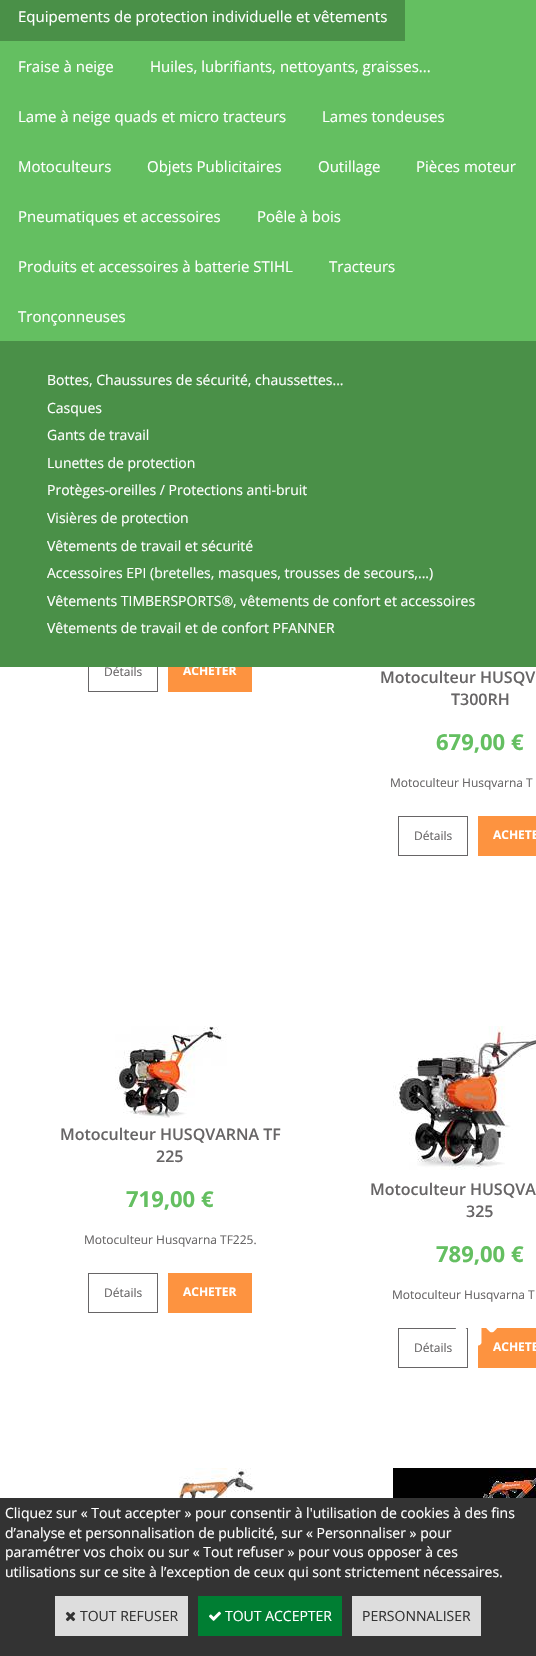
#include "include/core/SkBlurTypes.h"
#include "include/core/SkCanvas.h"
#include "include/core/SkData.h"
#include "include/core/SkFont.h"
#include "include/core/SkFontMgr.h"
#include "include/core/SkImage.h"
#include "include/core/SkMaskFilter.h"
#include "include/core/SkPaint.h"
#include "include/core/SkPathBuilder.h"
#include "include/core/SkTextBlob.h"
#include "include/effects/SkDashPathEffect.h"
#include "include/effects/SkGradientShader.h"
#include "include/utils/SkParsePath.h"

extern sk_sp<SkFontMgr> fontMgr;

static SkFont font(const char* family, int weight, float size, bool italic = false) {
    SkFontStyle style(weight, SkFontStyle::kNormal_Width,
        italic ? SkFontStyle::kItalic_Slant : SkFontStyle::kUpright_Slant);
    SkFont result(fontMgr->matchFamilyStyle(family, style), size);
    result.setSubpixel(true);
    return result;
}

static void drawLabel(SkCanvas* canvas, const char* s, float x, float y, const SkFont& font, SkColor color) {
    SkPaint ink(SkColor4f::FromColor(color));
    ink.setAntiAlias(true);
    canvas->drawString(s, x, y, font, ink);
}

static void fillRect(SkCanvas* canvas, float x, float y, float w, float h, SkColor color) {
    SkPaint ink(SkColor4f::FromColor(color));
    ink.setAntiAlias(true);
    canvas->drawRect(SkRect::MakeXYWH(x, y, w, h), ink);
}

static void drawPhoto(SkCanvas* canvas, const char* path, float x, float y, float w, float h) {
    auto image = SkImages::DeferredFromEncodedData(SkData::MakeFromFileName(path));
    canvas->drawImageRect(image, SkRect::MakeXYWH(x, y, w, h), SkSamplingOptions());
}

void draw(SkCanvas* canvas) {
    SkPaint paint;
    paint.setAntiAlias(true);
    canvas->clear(0xFFFFFFFF);
    fillRect(canvas, 0, 0, 536, 341, 0xFF64BF61);
    fillRect(canvas, 0, 0, 405, 41, 0xFF4A9048);
    SkFont font1 = font("Open Sans", 400, 15);
    drawLabel(canvas, "Equipements de protection individuelle et vêtements", 18, 22, font1, 0xFFFFFFFF);
    paint.setStroke(true);
    paint.setStrokeWidth(1);
    paint.setColor(0xFF676566);
    canvas->drawRect(SkRect::MakeXYWH(88.5f, 652.5f, 69, 39), paint);
    SkFont font2 = font("Open Sans", 400, 12);
    drawLabel(canvas, "Détails", 104, 676, font2, 0xFF676566);
    fillRect(canvas, 168, 667, 84, 25, 0xFFFD9340);
    SkFont font3 = font("Open Sans", 700, 12);
    drawLabel(canvas, "ACHETER", 183, 675, font3, 0xFFFFFFFF);
    fillRect(canvas, 0, 341, 536, 326, 0xFF4A9048);
    SkFont font4 = font("Open Sans", 400, 14);
    drawLabel(canvas, "Bottes, Chaussures de sécurité, chaussettes...", 47, 385, font4, 0xFFFFFFFF);
    drawLabel(canvas, "Casques", 47, 413, font4, 0xFFFFFFFF);
    drawLabel(canvas, "Gants de travail", 47, 440, font4, 0xFFFFFFFF);
    drawLabel(canvas, "Lunettes de protection", 47, 468, font4, 0xFFFFFFFF);
    drawLabel(canvas, "Protèges-oreilles / Protections anti-bruit", 47, 495, font4, 0xFFFFFFFF);
    drawLabel(canvas, "Visières de protection", 47, 523, font4, 0xFFFFFFFF);
    drawLabel(canvas, "Vêtements de travail et sécurité", 47, 551, font4, 0xFFFFFFFF);
    drawLabel(canvas, "Accessoires EPI (bretelles, masques, trousses de secours,...)", 47, 578, font4, 0xFFFFFFFF);
    drawLabel(canvas, "Vêtements TIMBERSPORTS®, vêtements de confort et accessoires", 47, 606, font4, 0xFFFFFFFF);
    drawLabel(canvas, "Vêtements de travail et de confort PFANNER", 47, 633, font4, 0xFFFFFFFF);
    drawLabel(canvas, "Fraise à neige", 18, 72, font1, 0xFFFFFFFF);
    drawLabel(canvas, "Huiles, lubrifiants, nettoyants, graisses...", 150, 72, font1, 0xFFFFFFFF);
    drawLabel(canvas, "Lame à neige quads et micro tracteurs", 18, 122, font1, 0xFFFFFFFF);
    drawLabel(canvas, "Lames tondeuses", 322, 122, font1, 0xFFFFFFFF);
    drawLabel(canvas, "Motoculteurs", 18, 172, font1, 0xFFFFFFFF);
    drawLabel(canvas, "Objets Publicitaires", 147, 172, font1, 0xFFFFFFFF);
    drawLabel(canvas, "Outillage", 318, 172, font1, 0xFFFFFFFF);
    drawLabel(canvas, "Pièces moteur", 416, 172, font1, 0xFFFFFFFF);
    drawLabel(canvas, "Pneumatiques et accessoires", 18, 222, font1, 0xFFFFFFFF);
    drawLabel(canvas, "Poêle à bois", 257, 222, font1, 0xFFFFFFFF);
    drawLabel(canvas, "Produits et accessoires à batterie STIHL", 18, 272, font1, 0xFFFFFFFF);
    drawLabel(canvas, "Tracteurs", 329, 272, font1, 0xFFFFFFFF);
    drawLabel(canvas, "Tronçonneuses", 18, 322, font1, 0xFFFFFFFF);
    SkFont font5 = font("Open Sans", 600, 16);
    drawLabel(canvas, "Motoculteur HUSQV", 380, 683, font5, 0xFF676566);
    drawLabel(canvas, "T300RH", 451, 705, font5, 0xFF676566);
    SkFont font6 = font("Open Sans", 700, 22);
    drawLabel(canvas, "679,00 €", 436, 750, font6, 0xFF64BF61);
    drawLabel(canvas, "Motoculteur Husqvarna T", 390, 787, font2, 0xFF676566);
    canvas->drawRect(SkRect::MakeXYWH(398.5f, 816.5f, 69, 39), paint);
    drawLabel(canvas, "Détails", 414, 840, font2, 0xFF676566);
    fillRect(canvas, 478, 816, 58, 40, 0xFFFD9340);
    drawLabel(canvas, "ACHETE", 493, 839, font3, 0xFFFFFFFF);
    drawPhoto(canvas, "assets/img1.png", 115, 1026, 112, 92);
    drawLabel(canvas, "Motoculteur HUSQVARNA TF", 60, 1140, font5, 0xFF676566);
    drawLabel(canvas, "225", 156, 1162, font5, 0xFF676566);
    drawLabel(canvas, "719,00 €", 126, 1207, font6, 0xFF64BF61);
    drawLabel(canvas, "Motoculteur Husqvarna TF225.", 84, 1244, font2, 0xFF676566);
    canvas->drawRect(SkRect::MakeXYWH(88.5f, 1273.5f, 69, 39), paint);
    drawLabel(canvas, "Détails", 104, 1297, font2, 0xFF676566);
    fillRect(canvas, 168, 1273, 84, 40, 0xFFFD9340);
    drawLabel(canvas, "ACHETER", 183, 1296, font3, 0xFFFFFFFF);
    drawPhoto(canvas, "assets/img2.png", 393, 1026, 143, 144);
    drawLabel(canvas, "Motoculteur HUSQVA", 370, 1195, font5, 0xFF676566);
    drawLabel(canvas, "325", 466, 1217, font5, 0xFF676566);
    drawLabel(canvas, "789,00 €", 436, 1262, font6, 0xFF64BF61);
    drawLabel(canvas, "Motoculteur Husqvarna T", 392, 1299, font2, 0xFF676566);
    canvas->drawRect(SkRect::MakeXYWH(398.5f, 1328.5f, 69, 39), paint);
    drawLabel(canvas, "Détails", 414, 1352, font2, 0xFF676566);
    fillRect(canvas, 478, 1328, 58, 40, 0xFFFD9340);
    drawLabel(canvas, "ACHETE", 493, 1351, font3, 0xFFFFFFFF);
    drawPhoto(canvas, "assets/img3.png", 90, 1468, 165, 30);
    drawPhoto(canvas, "assets/img4.png", 393, 1468, 143, 30);
    drawPhoto(canvas, "assets/img5.png", 455, 1328, 42, 18);
    fillRect(canvas, 0, 1498, 536, 158, 0xFF333333);
    drawLabel(canvas, "Cliquez sur « Tout accepter » pour consentir à l'utilisation de cookies à des fins", 5, 1518, font4, 0xFFFFFFFF);
    drawLabel(canvas, "d’analyse et personnalisation de publicité, sur « Personnaliser » pour", 5, 1538, font4, 0xFFFFFFFF);
    drawLabel(canvas, "paramétrer vos choix ou sur « Tout refuser » pour vous opposer à ces", 5, 1557, font4, 0xFFFFFFFF);
    drawLabel(canvas, "utilisations sur ce site à l’exception de ceux qui sont strictement nécessaires.", 5, 1577, font4, 0xFFFFFFFF);
    fillRect(canvas, 55, 1596, 133, 40, 0xFFDDDDDD);
    drawPhoto(canvas, "assets/img6.png", 65, 1611, 11, 11);
    drawLabel(canvas, "TOUT REFUSER", 80, 1621, font4, 0xFF333333);
    fillRect(canvas, 198, 1596, 144, 40, 0xFF007E33);
    drawPhoto(canvas, "assets/img7.png", 209, 1611, 12, 10);
    drawLabel(canvas, "TOUT ACCEPTER", 225, 1621, font4, 0xFFFFFFFF);
    fillRect(canvas, 352, 1596, 129, 40, 0xFFDDDDDD);
    drawLabel(canvas, "PERSONNALISER", 362, 1621, font4, 0xFF333333);
}
